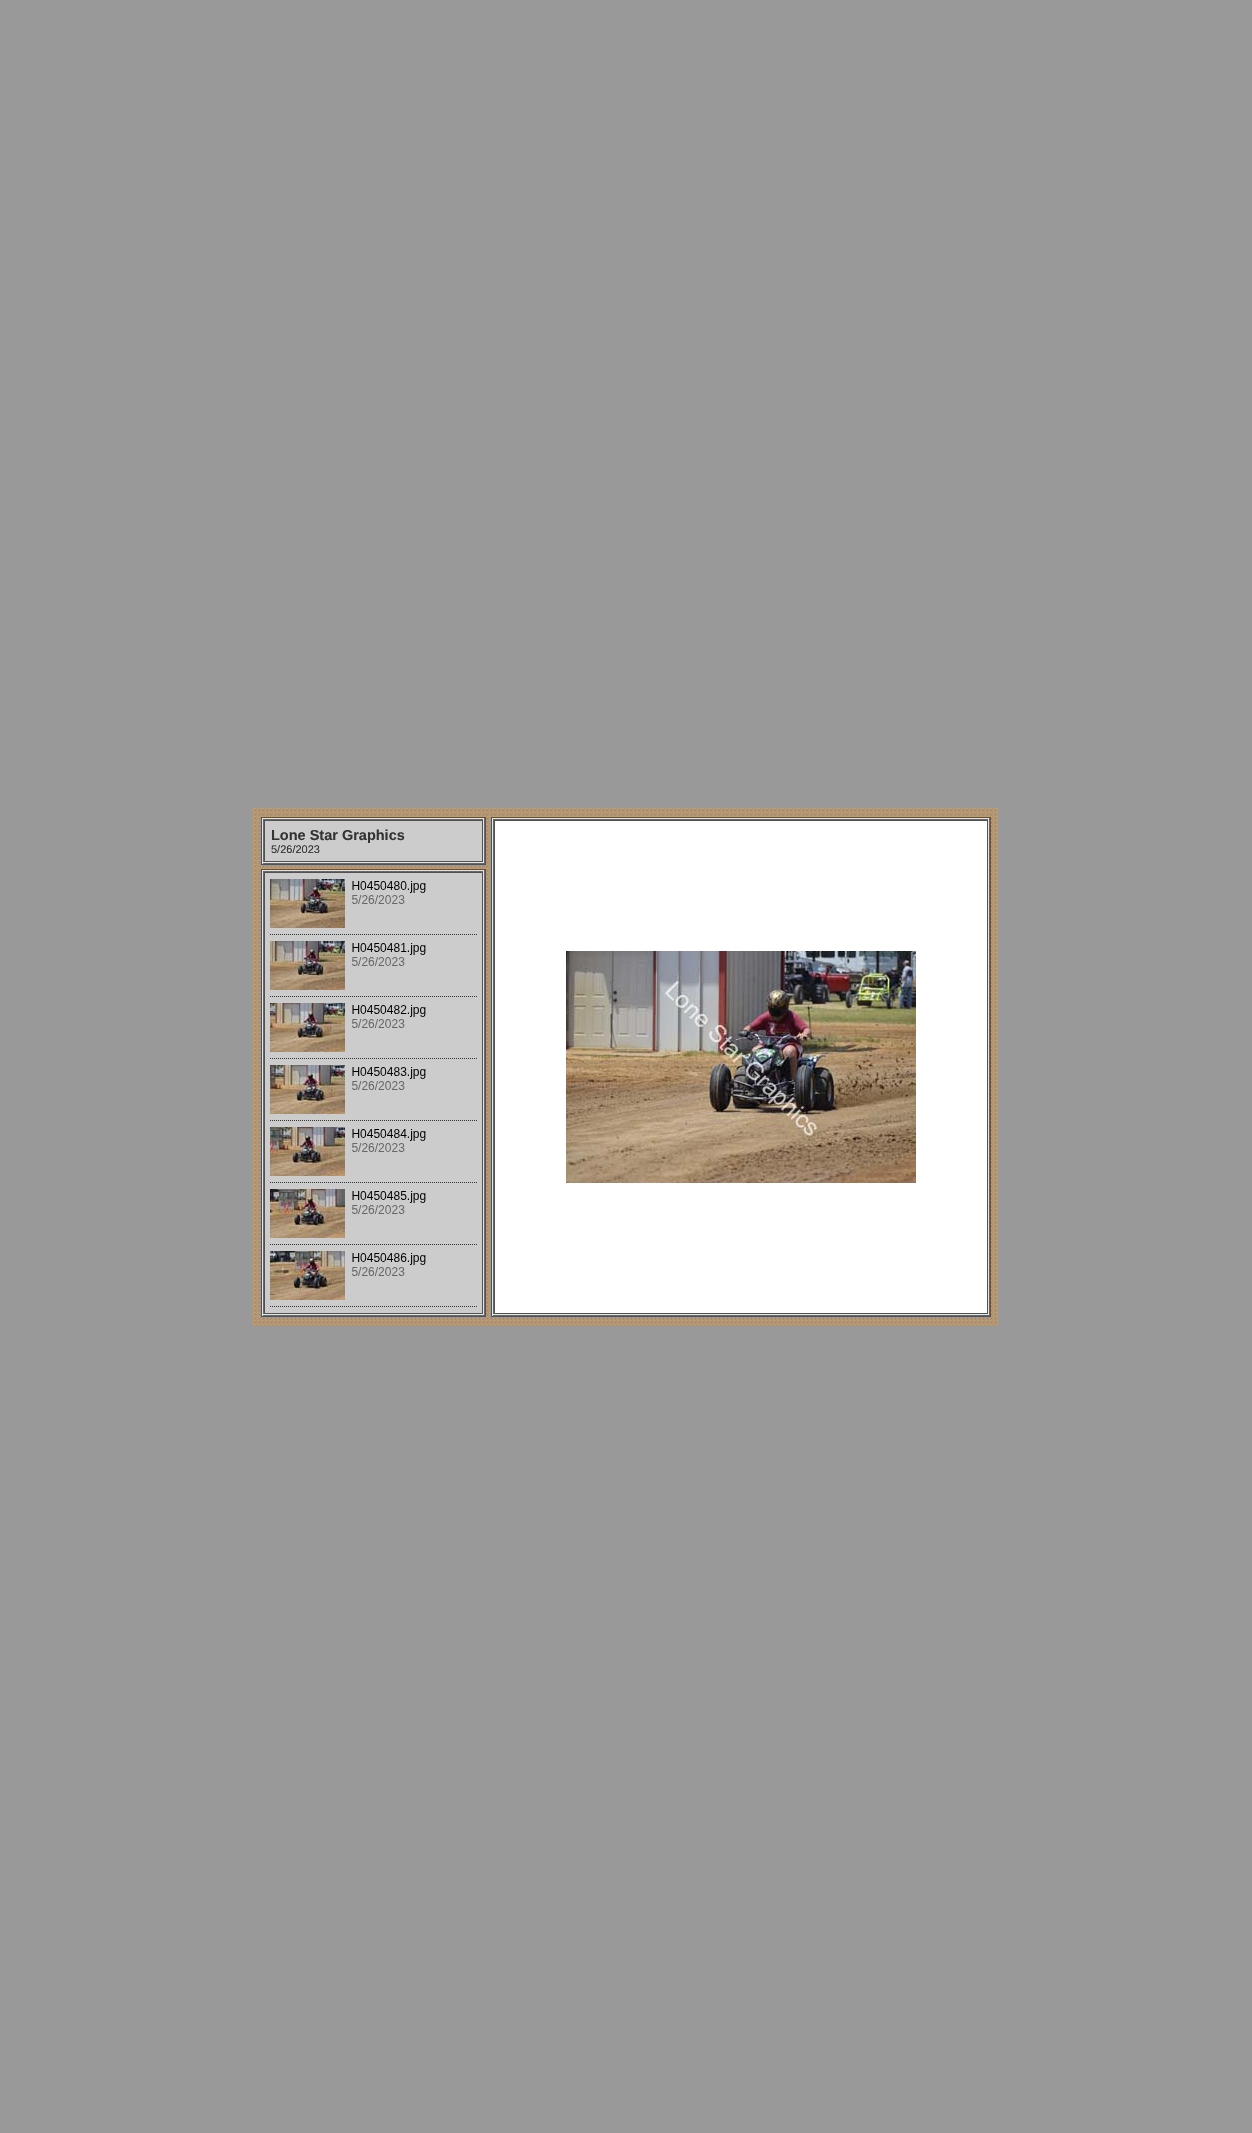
#include "include/core/SkBlurTypes.h"
#include "include/core/SkCanvas.h"
#include "include/core/SkData.h"
#include "include/core/SkFont.h"
#include "include/core/SkFontMgr.h"
#include "include/core/SkImage.h"
#include "include/core/SkMaskFilter.h"
#include "include/core/SkPaint.h"
#include "include/core/SkPathBuilder.h"
#include "include/core/SkTextBlob.h"
#include "include/effects/SkDashPathEffect.h"
#include "include/effects/SkGradientShader.h"
#include "include/utils/SkParsePath.h"

extern sk_sp<SkFontMgr> fontMgr;

static SkFont font(const char* family, int weight, float size, bool italic = false) {
    SkFontStyle style(weight, SkFontStyle::kNormal_Width,
        italic ? SkFontStyle::kItalic_Slant : SkFontStyle::kUpright_Slant);
    SkFont result(fontMgr->matchFamilyStyle(family, style), size);
    result.setSubpixel(true);
    return result;
}

static void drawLabel(SkCanvas* canvas, const char* s, float x, float y, const SkFont& font, SkColor color) {
    SkPaint ink(SkColor4f::FromColor(color));
    ink.setAntiAlias(true);
    canvas->drawString(s, x, y, font, ink);
}

static void fillRect(SkCanvas* canvas, float x, float y, float w, float h, SkColor color) {
    SkPaint ink(SkColor4f::FromColor(color));
    ink.setAntiAlias(true);
    canvas->drawRect(SkRect::MakeXYWH(x, y, w, h), ink);
}

static void drawPhoto(SkCanvas* canvas, const char* path, float x, float y, float w, float h) {
    auto image = SkImages::DeferredFromEncodedData(SkData::MakeFromFileName(path));
    canvas->drawImageRect(image, SkRect::MakeXYWH(x, y, w, h), SkSamplingOptions());
}

void draw(SkCanvas* canvas) {
    SkPaint paint;
    paint.setAntiAlias(true);
    canvas->clear(0xFF999999);
    drawPhoto(canvas, "assets/img1.png", 253, 808, 745, 517);
    drawPhoto(canvas, "assets/img2.png", 261, 817, 4, 4);
    drawPhoto(canvas, "assets/img3.png", 265, 817, 217, 4);
    drawPhoto(canvas, "assets/img4.png", 482, 817, 4, 4);
    drawPhoto(canvas, "assets/img5.png", 261, 821, 4, 40);
    fillRect(canvas, 265, 821, 217, 40, 0xFFCCCCCC);
    SkFont font1 = font("Liberation Sans", 700, 14.5f);
    drawLabel(canvas, "Lone Star Graphics", 271, 840, font1, 0xFF333333);
    SkFont font2 = font("Liberation Sans", 400, 11);
    drawLabel(canvas, "5/26/2023", 271, 853, font2, 0xFF333333);
    drawPhoto(canvas, "assets/img6.png", 482, 821, 4, 40);
    drawPhoto(canvas, "assets/img7.png", 261, 861, 4, 4);
    drawPhoto(canvas, "assets/img8.png", 265, 861, 217, 4);
    drawPhoto(canvas, "assets/img9.png", 482, 861, 4, 4);
    drawPhoto(canvas, "assets/img2.png", 261, 869, 4, 4);
    drawPhoto(canvas, "assets/img3.png", 265, 869, 217, 4);
    drawPhoto(canvas, "assets/img4.png", 482, 869, 4, 4);
    drawPhoto(canvas, "assets/img10.png", 261, 873, 4, 440);
    drawPhoto(canvas, "assets/img11.png", 265, 873, 217, 440);
    drawPhoto(canvas, "assets/img12.png", 482, 873, 4, 440);
    drawPhoto(canvas, "assets/img7.png", 261, 1313, 4, 4);
    drawPhoto(canvas, "assets/img8.png", 265, 1313, 217, 4);
    drawPhoto(canvas, "assets/img9.png", 482, 1313, 4, 4);
    drawPhoto(canvas, "assets/img2.png", 491, 817, 4, 4);
    drawPhoto(canvas, "assets/img13.png", 495, 817, 492, 4);
    drawPhoto(canvas, "assets/img4.png", 987, 817, 4, 4);
    drawPhoto(canvas, "assets/img14.png", 491, 821, 4, 492);
    drawPhoto(canvas, "assets/img15.png", 495, 821, 492, 492);
    drawPhoto(canvas, "assets/img16.png", 987, 821, 4, 492);
    drawPhoto(canvas, "assets/img7.png", 491, 1313, 4, 4);
    drawPhoto(canvas, "assets/img17.png", 495, 1313, 492, 4);
    drawPhoto(canvas, "assets/img9.png", 987, 1313, 4, 4);
}
